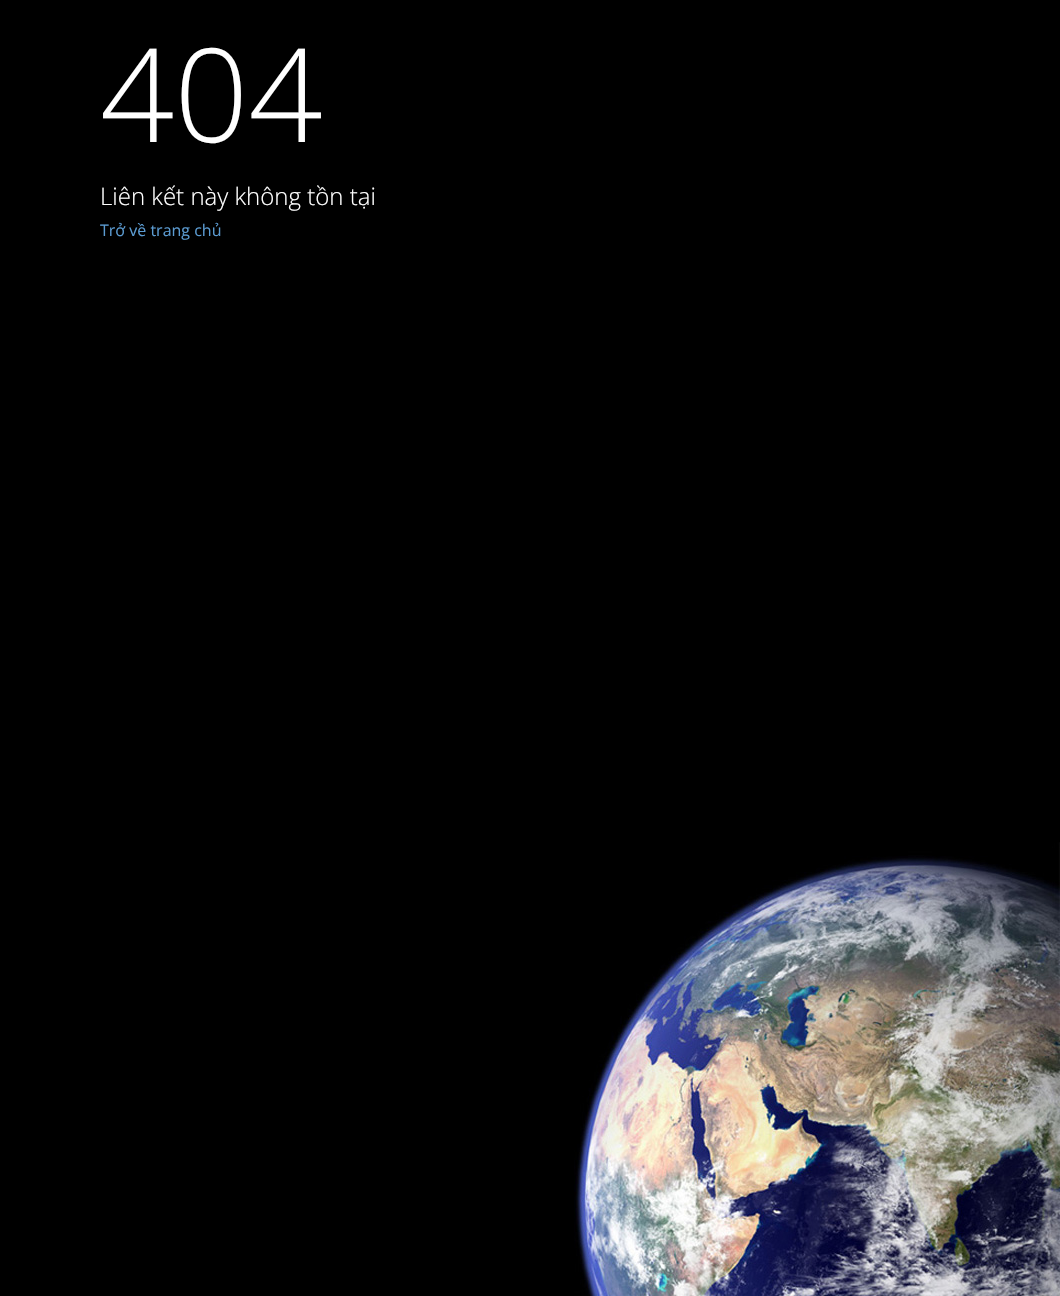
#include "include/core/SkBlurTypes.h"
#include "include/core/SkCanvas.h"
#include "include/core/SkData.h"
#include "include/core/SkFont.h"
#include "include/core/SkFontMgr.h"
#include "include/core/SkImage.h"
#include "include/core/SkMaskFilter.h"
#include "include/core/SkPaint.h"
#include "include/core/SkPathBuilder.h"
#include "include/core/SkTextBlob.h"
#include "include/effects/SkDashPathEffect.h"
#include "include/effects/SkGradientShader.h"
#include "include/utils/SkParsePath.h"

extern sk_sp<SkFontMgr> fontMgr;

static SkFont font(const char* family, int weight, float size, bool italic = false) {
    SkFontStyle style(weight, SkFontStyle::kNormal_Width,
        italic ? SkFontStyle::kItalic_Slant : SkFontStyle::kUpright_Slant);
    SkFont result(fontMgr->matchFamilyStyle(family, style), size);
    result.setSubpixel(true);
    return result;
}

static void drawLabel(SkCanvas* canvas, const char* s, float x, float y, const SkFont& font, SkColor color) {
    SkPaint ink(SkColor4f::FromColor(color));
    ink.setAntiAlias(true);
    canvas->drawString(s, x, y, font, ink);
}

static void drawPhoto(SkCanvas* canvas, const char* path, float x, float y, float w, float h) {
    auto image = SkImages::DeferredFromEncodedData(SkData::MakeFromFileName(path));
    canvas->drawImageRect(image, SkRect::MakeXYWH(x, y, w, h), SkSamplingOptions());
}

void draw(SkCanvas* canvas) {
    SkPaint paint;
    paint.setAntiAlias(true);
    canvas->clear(0xFF000000);
    SkFont font1 = font("Open Sans", 300, 130);
    drawLabel(canvas, "404", 100, 142, font1, 0xFFFFFFFF);
    SkFont font2 = font("Open Sans", 300, 24);
    drawLabel(canvas, "Liên kết này không tồn tại", 100, 205, font2, 0xFFFFFFFF);
    SkFont font3 = font("Open Sans", 400, 16);
    drawLabel(canvas, "Trở về trang chủ", 100, 236, font3, 0xFF5B9BD1);
    drawPhoto(canvas, "assets/img1.png", 574, 842, 486, 454);
}
